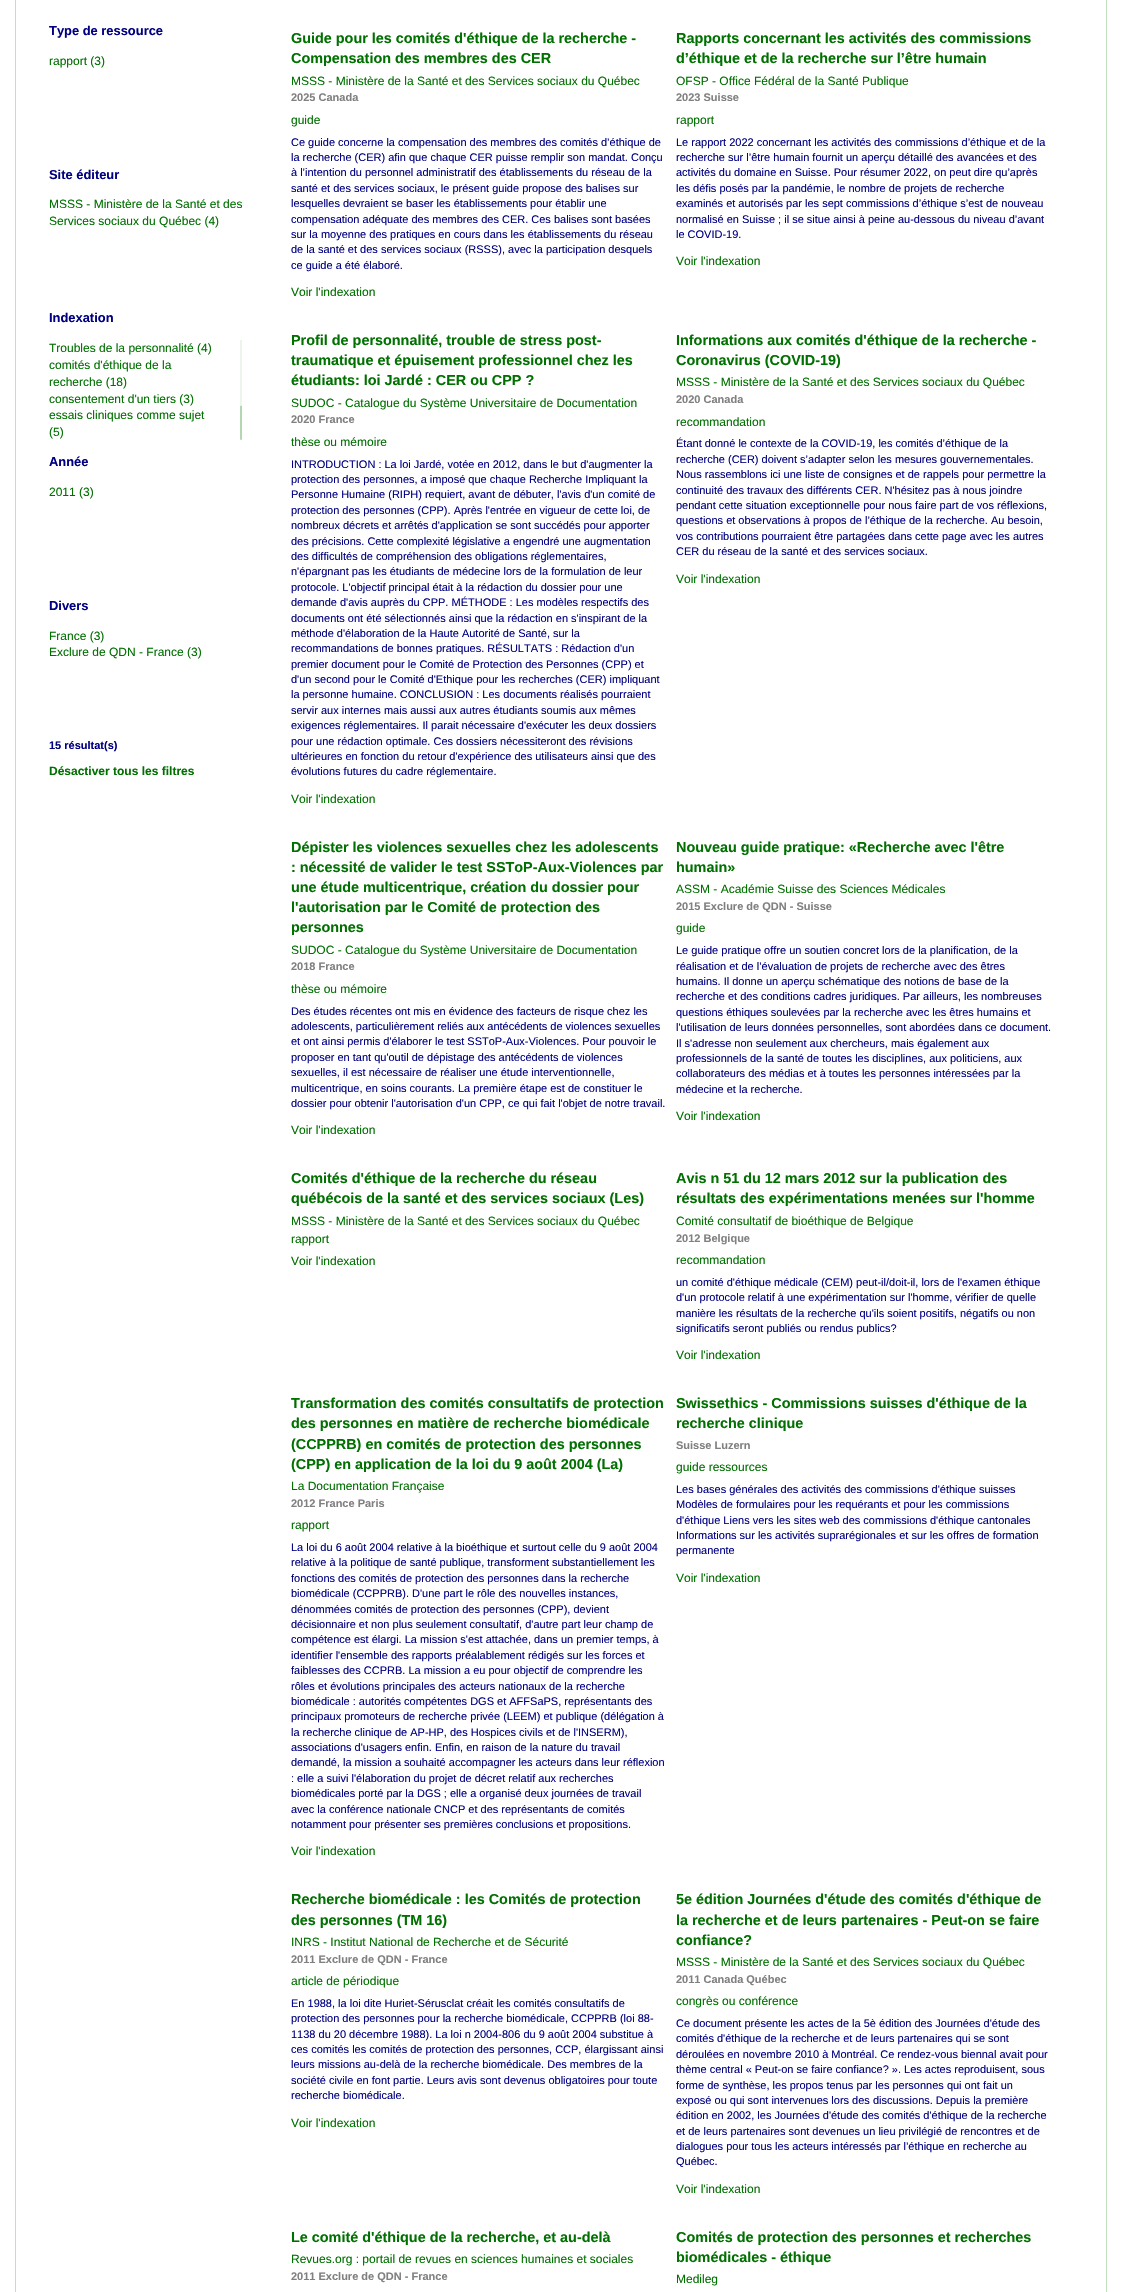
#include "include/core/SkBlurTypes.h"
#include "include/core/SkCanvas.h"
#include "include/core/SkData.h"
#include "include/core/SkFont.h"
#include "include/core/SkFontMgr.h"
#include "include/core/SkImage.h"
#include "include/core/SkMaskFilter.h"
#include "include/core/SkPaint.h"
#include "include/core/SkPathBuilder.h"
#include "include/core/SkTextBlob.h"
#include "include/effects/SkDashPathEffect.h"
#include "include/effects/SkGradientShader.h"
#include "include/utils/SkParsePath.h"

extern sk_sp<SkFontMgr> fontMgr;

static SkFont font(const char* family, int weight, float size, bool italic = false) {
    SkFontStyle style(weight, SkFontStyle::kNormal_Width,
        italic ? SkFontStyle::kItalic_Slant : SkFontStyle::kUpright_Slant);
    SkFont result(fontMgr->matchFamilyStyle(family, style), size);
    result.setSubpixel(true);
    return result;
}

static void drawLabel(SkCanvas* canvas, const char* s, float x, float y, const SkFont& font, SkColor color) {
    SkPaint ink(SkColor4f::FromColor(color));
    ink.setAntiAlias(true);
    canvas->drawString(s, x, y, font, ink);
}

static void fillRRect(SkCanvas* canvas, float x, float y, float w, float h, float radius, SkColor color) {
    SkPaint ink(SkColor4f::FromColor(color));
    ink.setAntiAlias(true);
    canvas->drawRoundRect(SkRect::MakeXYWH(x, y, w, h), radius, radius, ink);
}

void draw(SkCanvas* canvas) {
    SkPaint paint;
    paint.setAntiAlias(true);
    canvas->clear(0xFFFFFFFF);
    paint.setStroke(true);
    paint.setStrokeWidth(1);
    paint.setColor(0xFFC0E0C0);
    canvas->drawRect(SkRect::MakeXYWH(15.5f, -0.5f, 1091, 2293), paint);
    SkFont font1 = font("Liberation Sans", 700, 12.9f);
    drawLabel(canvas, "Type de ressource", 49, 35, font1, 0xFF000080);
    SkFont font2 = font("Liberation Sans", 400, 12);
    drawLabel(canvas, "rapport (3)", 49, 65, font2, 0xFF007000);
    drawLabel(canvas, "Site éditeur", 49, 179, font1, 0xFF000080);
    drawLabel(canvas, "MSSS - Ministère de la Santé et des", 49, 208, font2, 0xFF007000);
    drawLabel(canvas, "Services sociaux du Québec (4)", 49, 225, font2, 0xFF007000);
    drawLabel(canvas, "Indexation", 49, 322, font1, 0xFF000080);
    drawLabel(canvas, "Troubles de la personnalité (4)", 49, 352, font2, 0xFF007000);
    drawLabel(canvas, "comités d'éthique de la", 49, 369, font2, 0xFF007000);
    drawLabel(canvas, "recherche (18)", 49, 386, font2, 0xFF007000);
    drawLabel(canvas, "consentement d'un tiers (3)", 49, 403, font2, 0xFF007000);
    drawLabel(canvas, "essais cliniques comme sujet", 49, 419, font2, 0xFF007000);
    drawLabel(canvas, "(5)", 49, 436, font2, 0xFF007000);
    fillRRect(canvas, 240, 340, 2, 100, 1, 0xFFB3D7B3);
    fillRRect(canvas, 239, 340, 4, 66, 2, 0xBFFFFFFF);
    drawLabel(canvas, "Année", 49, 466, font1, 0xFF000080);
    drawLabel(canvas, "2011 (3)", 49, 496, font2, 0xFF007000);
    drawLabel(canvas, "Divers", 49, 610, font1, 0xFF000080);
    drawLabel(canvas, "France (3)", 49, 640, font2, 0xFF007000);
    drawLabel(canvas, "Exclure de QDN - France (3)", 49, 656, font2, 0xFF007000);
    SkFont font3 = font("Liberation Sans", 700, 11);
    drawLabel(canvas, "15 résultat(s)", 49, 749, font3, 0xFF000080);
    SkFont font4 = font("Liberation Sans", 700, 12);
    drawLabel(canvas, "Désactiver tous les filtres", 49, 775, font4, 0xFF007000);
    SkFont font5 = font("Liberation Sans", 700, 14.4f);
    drawLabel(canvas, "Guide pour les comités d'éthique de la recherche -", 291, 43, font5, 0xFF007000);
    drawLabel(canvas, "Compensation des membres des CER", 291, 63, font5, 0xFF007000);
    drawLabel(canvas, "MSSS - Ministère de la Santé et des Services sociaux du Québec", 291, 85, font2, 0xFF007000);
    drawLabel(canvas, "2025 Canada", 291, 101, font3, 0xFF808080);
    drawLabel(canvas, "guide", 291, 124, font2, 0xFF007000);
    SkFont font6 = font("Liberation Sans", 400, 11);
    drawLabel(canvas, "Ce guide concerne la compensation des membres des comités d’éthique de", 291, 146, font6, 0xFF000080);
    drawLabel(canvas, "la recherche (CER) afin que chaque CER puisse remplir son mandat. Conçu", 291, 161, font6, 0xFF000080);
    drawLabel(canvas, "à l’intention du personnel administratif des établissements du réseau de la", 291, 176, font6, 0xFF000080);
    drawLabel(canvas, "santé et des services sociaux, le présent guide propose des balises sur", 291, 192, font6, 0xFF000080);
    drawLabel(canvas, "lesquelles devraient se baser les établissements pour établir une", 291, 207, font6, 0xFF000080);
    drawLabel(canvas, "compensation adéquate des membres des CER. Ces balises sont basées", 291, 223, font6, 0xFF000080);
    drawLabel(canvas, "sur la moyenne des pratiques en cours dans les établissements du réseau", 291, 238, font6, 0xFF000080);
    drawLabel(canvas, "de la santé et des services sociaux (RSSS), avec la participation desquels", 291, 253, font6, 0xFF000080);
    drawLabel(canvas, "ce guide a été élaboré.", 291, 269, font6, 0xFF000080);
    drawLabel(canvas, "Voir l'indexation", 291, 296, font2, 0xFF007000);
    drawLabel(canvas, "Rapports concernant les activités des commissions", 676, 43, font5, 0xFF007000);
    drawLabel(canvas, "d’éthique et de la recherche sur l’être humain", 676, 63, font5, 0xFF007000);
    drawLabel(canvas, "OFSP - Office Fédéral de la Santé Publique", 676, 85, font2, 0xFF007000);
    drawLabel(canvas, "2023 Suisse", 676, 101, font3, 0xFF808080);
    drawLabel(canvas, "rapport", 676, 124, font2, 0xFF007000);
    drawLabel(canvas, "Le rapport 2022 concernant les activités des commissions d’éthique et de la", 676, 146, font6, 0xFF000080);
    drawLabel(canvas, "recherche sur l’être humain fournit un aperçu détaillé des avancées et des", 676, 161, font6, 0xFF000080);
    drawLabel(canvas, "activités du domaine en Suisse. Pour résumer 2022, on peut dire qu’après", 676, 176, font6, 0xFF000080);
    drawLabel(canvas, "les défis posés par la pandémie, le nombre de projets de recherche", 676, 192, font6, 0xFF000080);
    drawLabel(canvas, "examinés et autorisés par les sept commissions d’éthique s’est de nouveau", 676, 207, font6, 0xFF000080);
    drawLabel(canvas, "normalisé en Suisse ; il se situe ainsi à peine au-dessous du niveau d’avant", 676, 223, font6, 0xFF000080);
    drawLabel(canvas, "le COVID-19.", 676, 238, font6, 0xFF000080);
    drawLabel(canvas, "Voir l'indexation", 676, 265, font2, 0xFF007000);
    drawLabel(canvas, "Profil de personnalité, trouble de stress post-", 291, 345, font5, 0xFF007000);
    drawLabel(canvas, "traumatique et épuisement professionnel chez les", 291, 365, font5, 0xFF007000);
    drawLabel(canvas, "étudiants: loi Jardé : CER ou CPP ?", 291, 385, font5, 0xFF007000);
    drawLabel(canvas, "SUDOC - Catalogue du Système Universitaire de Documentation", 291, 407, font2, 0xFF007000);
    drawLabel(canvas, "2020 France", 291, 423, font3, 0xFF808080);
    drawLabel(canvas, "thèse ou mémoire", 291, 446, font2, 0xFF007000);
    drawLabel(canvas, "INTRODUCTION : La loi Jardé, votée en 2012, dans le but d'augmenter la", 291, 468, font6, 0xFF000080);
    drawLabel(canvas, "protection des personnes, a imposé que chaque Recherche Impliquant la", 291, 483, font6, 0xFF000080);
    drawLabel(canvas, "Personne Humaine (RIPH) requiert, avant de débuter, l'avis d'un comité de", 291, 498, font6, 0xFF000080);
    drawLabel(canvas, "protection des personnes (CPP). Après l'entrée en vigueur de cette loi, de", 291, 514, font6, 0xFF000080);
    drawLabel(canvas, "nombreux décrets et arrêtés d'application se sont succédés pour apporter", 291, 529, font6, 0xFF000080);
    drawLabel(canvas, "des précisions. Cette complexité législative a engendré une augmentation", 291, 545, font6, 0xFF000080);
    drawLabel(canvas, "des difficultés de compréhension des obligations réglementaires,", 291, 560, font6, 0xFF000080);
    drawLabel(canvas, "n'épargnant pas les étudiants de médecine lors de la formulation de leur", 291, 575, font6, 0xFF000080);
    drawLabel(canvas, "protocole. L'objectif principal était à la rédaction du dossier pour une", 291, 591, font6, 0xFF000080);
    drawLabel(canvas, "demande d'avis auprès du CPP. MÉTHODE : Les modèles respectifs des", 291, 606, font6, 0xFF000080);
    drawLabel(canvas, "documents ont été sélectionnés ainsi que la rédaction en s'inspirant de la", 291, 622, font6, 0xFF000080);
    drawLabel(canvas, "méthode d'élaboration de la Haute Autorité de Santé, sur la", 291, 637, font6, 0xFF000080);
    drawLabel(canvas, "recommandations de bonnes pratiques. RÉSULTATS : Rédaction d'un", 291, 652, font6, 0xFF000080);
    drawLabel(canvas, "premier document pour le Comité de Protection des Personnes (CPP) et", 291, 668, font6, 0xFF000080);
    drawLabel(canvas, "d'un second pour le Comité d'Ethique pour les recherches (CER) impliquant", 291, 683, font6, 0xFF000080);
    drawLabel(canvas, "la personne humaine. CONCLUSION : Les documents réalisés pourraient", 291, 698, font6, 0xFF000080);
    drawLabel(canvas, "servir aux internes mais aussi aux autres étudiants soumis aux mêmes", 291, 714, font6, 0xFF000080);
    drawLabel(canvas, "exigences réglementaires. Il parait nécessaire d'exécuter les deux dossiers", 291, 729, font6, 0xFF000080);
    drawLabel(canvas, "pour une rédaction optimale. Ces dossiers nécessiteront des révisions", 291, 745, font6, 0xFF000080);
    drawLabel(canvas, "ultérieures en fonction du retour d'expérience des utilisateurs ainsi que des", 291, 760, font6, 0xFF000080);
    drawLabel(canvas, "évolutions futures du cadre réglementaire.", 291, 775, font6, 0xFF000080);
    drawLabel(canvas, "Voir l'indexation", 291, 803, font2, 0xFF007000);
    drawLabel(canvas, "Informations aux comités d'éthique de la recherche -", 676, 345, font5, 0xFF007000);
    drawLabel(canvas, "Coronavirus (COVID-19)", 676, 365, font5, 0xFF007000);
    drawLabel(canvas, "MSSS - Ministère de la Santé et des Services sociaux du Québec", 676, 386, font2, 0xFF007000);
    drawLabel(canvas, "2020 Canada", 676, 403, font3, 0xFF808080);
    drawLabel(canvas, "recommandation", 676, 426, font2, 0xFF007000);
    drawLabel(canvas, "Étant donné le contexte de la COVID-19, les comités d’éthique de la", 676, 447, font6, 0xFF000080);
    drawLabel(canvas, "recherche (CER) doivent s’adapter selon les mesures gouvernementales.", 676, 463, font6, 0xFF000080);
    drawLabel(canvas, "Nous rassemblons ici une liste de consignes et de rappels pour permettre la", 676, 478, font6, 0xFF000080);
    drawLabel(canvas, "continuité des travaux des différents CER. N'hésitez pas à nous joindre", 676, 494, font6, 0xFF000080);
    drawLabel(canvas, "pendant cette situation exceptionnelle pour nous faire part de vos réflexions,", 676, 509, font6, 0xFF000080);
    drawLabel(canvas, "questions et observations à propos de l’éthique de la recherche. Au besoin,", 676, 524, font6, 0xFF000080);
    drawLabel(canvas, "vos contributions pourraient être partagées dans cette page avec les autres", 676, 540, font6, 0xFF000080);
    drawLabel(canvas, "CER du réseau de la santé et des services sociaux.", 676, 555, font6, 0xFF000080);
    drawLabel(canvas, "Voir l'indexation", 676, 583, font2, 0xFF007000);
    drawLabel(canvas, "Dépister les violences sexuelles chez les adolescents", 291, 852, font5, 0xFF007000);
    drawLabel(canvas, ": nécessité de valider le test SSToP-Aux-Violences par", 291, 872, font5, 0xFF007000);
    drawLabel(canvas, "une étude multicentrique, création du dossier pour", 291, 892, font5, 0xFF007000);
    drawLabel(canvas, "l'autorisation par le Comité de protection des", 291, 912, font5, 0xFF007000);
    drawLabel(canvas, "personnes", 291, 932, font5, 0xFF007000);
    drawLabel(canvas, "SUDOC - Catalogue du Système Universitaire de Documentation", 291, 954, font2, 0xFF007000);
    drawLabel(canvas, "2018 France", 291, 970, font3, 0xFF808080);
    drawLabel(canvas, "thèse ou mémoire", 291, 993, font2, 0xFF007000);
    drawLabel(canvas, "Des études récentes ont mis en évidence des facteurs de risque chez les", 291, 1015, font6, 0xFF000080);
    drawLabel(canvas, "adolescents, particulièrement reliés aux antécédents de violences sexuelles", 291, 1030, font6, 0xFF000080);
    drawLabel(canvas, "et ont ainsi permis d'élaborer le test SSToP-Aux-Violences. Pour pouvoir le", 291, 1045, font6, 0xFF000080);
    drawLabel(canvas, "proposer en tant qu'outil de dépistage des antécédents de violences", 291, 1061, font6, 0xFF000080);
    drawLabel(canvas, "sexuelles, il est nécessaire de réaliser une étude interventionnelle,", 291, 1076, font6, 0xFF000080);
    drawLabel(canvas, "multicentrique, en soins courants. La première étape est de constituer le", 291, 1092, font6, 0xFF000080);
    drawLabel(canvas, "dossier pour obtenir l'autorisation d'un CPP, ce qui fait l'objet de notre travail.", 291, 1107, font6, 0xFF000080);
    drawLabel(canvas, "Voir l'indexation", 291, 1134, font2, 0xFF007000);
    drawLabel(canvas, "Nouveau guide pratique: «Recherche avec l'être", 676, 852, font5, 0xFF007000);
    drawLabel(canvas, "humain»", 676, 872, font5, 0xFF007000);
    drawLabel(canvas, "ASSM - Académie Suisse des Sciences Médicales", 676, 893, font2, 0xFF007000);
    drawLabel(canvas, "2015 Exclure de QDN - Suisse", 676, 910, font3, 0xFF808080);
    drawLabel(canvas, "guide", 676, 932, font2, 0xFF007000);
    drawLabel(canvas, "Le guide pratique offre un soutien concret lors de la planification, de la", 676, 954, font6, 0xFF000080);
    drawLabel(canvas, "réalisation et de l’évaluation de projets de recherche avec des êtres", 676, 970, font6, 0xFF000080);
    drawLabel(canvas, "humains. Il donne un aperçu schématique des notions de base de la", 676, 985, font6, 0xFF000080);
    drawLabel(canvas, "recherche et des conditions cadres juridiques. Par ailleurs, les nombreuses", 676, 1000, font6, 0xFF000080);
    drawLabel(canvas, "questions éthiques soulevées par la recherche avec les êtres humains et", 676, 1016, font6, 0xFF000080);
    drawLabel(canvas, "l'utilisation de leurs données personnelles, sont abordées dans ce document.", 676, 1031, font6, 0xFF000080);
    drawLabel(canvas, "Il s'adresse non seulement aux chercheurs, mais également aux", 676, 1047, font6, 0xFF000080);
    drawLabel(canvas, "professionnels de la santé de toutes les disciplines, aux politiciens, aux", 676, 1062, font6, 0xFF000080);
    drawLabel(canvas, "collaborateurs des médias et à toutes les personnes intéressées par la", 676, 1077, font6, 0xFF000080);
    drawLabel(canvas, "médecine et la recherche.", 676, 1093, font6, 0xFF000080);
    drawLabel(canvas, "Voir l'indexation", 676, 1120, font2, 0xFF007000);
    drawLabel(canvas, "Comités d'éthique de la recherche du réseau", 291, 1183, font5, 0xFF007000);
    drawLabel(canvas, "québécois de la santé et des services sociaux (Les)", 291, 1203, font5, 0xFF007000);
    drawLabel(canvas, "MSSS - Ministère de la Santé et des Services sociaux du Québec", 291, 1225, font2, 0xFF007000);
    drawLabel(canvas, "rapport", 291, 1243, font2, 0xFF007000);
    drawLabel(canvas, "Voir l'indexation", 291, 1265, font2, 0xFF007000);
    drawLabel(canvas, "Avis n 51 du 12 mars 2012 sur la publication des", 676, 1183, font5, 0xFF007000);
    drawLabel(canvas, "résultats des expérimentations menées sur l'homme", 676, 1203, font5, 0xFF007000);
    drawLabel(canvas, "Comité consultatif de bioéthique de Belgique", 676, 1225, font2, 0xFF007000);
    drawLabel(canvas, "2012 Belgique", 676, 1242, font3, 0xFF808080);
    drawLabel(canvas, "recommandation", 676, 1264, font2, 0xFF007000);
    drawLabel(canvas, "un comité d'éthique médicale (CEM) peut-il/doit-il, lors de l'examen éthique", 676, 1286, font6, 0xFF000080);
    drawLabel(canvas, "d'un protocole relatif à une expérimentation sur l'homme, vérifier de quelle", 676, 1301, font6, 0xFF000080);
    drawLabel(canvas, "manière les résultats de la recherche qu'ils soient positifs, négatifs ou non", 676, 1317, font6, 0xFF000080);
    drawLabel(canvas, "significatifs seront publiés ou rendus publics?", 676, 1332, font6, 0xFF000080);
    drawLabel(canvas, "Voir l'indexation", 676, 1359, font2, 0xFF007000);
    drawLabel(canvas, "Transformation des comités consultatifs de protection", 291, 1408, font5, 0xFF007000);
    drawLabel(canvas, "des personnes en matière de recherche biomédicale", 291, 1428, font5, 0xFF007000);
    drawLabel(canvas, "(CCPPRB) en comités de protection des personnes", 291, 1449, font5, 0xFF007000);
    drawLabel(canvas, "(CPP) en application de la loi du 9 août 2004 (La)", 291, 1469, font5, 0xFF007000);
    drawLabel(canvas, "La Documentation Française", 291, 1490, font2, 0xFF007000);
    drawLabel(canvas, "2012 France Paris", 291, 1507, font3, 0xFF808080);
    drawLabel(canvas, "rapport", 291, 1529, font2, 0xFF007000);
    drawLabel(canvas, "La loi du 6 août 2004 relative à la bioéthique et surtout celle du 9 août 2004", 291, 1551, font6, 0xFF000080);
    drawLabel(canvas, "relative à la politique de santé publique, transforment substantiellement les", 291, 1566, font6, 0xFF000080);
    drawLabel(canvas, "fonctions des comités de protection des personnes dans la recherche", 291, 1582, font6, 0xFF000080);
    drawLabel(canvas, "biomédicale (CCPPRB). D'une part le rôle des nouvelles instances,", 291, 1597, font6, 0xFF000080);
    drawLabel(canvas, "dénommées comités de protection des personnes (CPP), devient", 291, 1613, font6, 0xFF000080);
    drawLabel(canvas, "décisionnaire et non plus seulement consultatif, d'autre part leur champ de", 291, 1628, font6, 0xFF000080);
    drawLabel(canvas, "compétence est élargi. La mission s'est attachée, dans un premier temps, à", 291, 1643, font6, 0xFF000080);
    drawLabel(canvas, "identifier l'ensemble des rapports préalablement rédigés sur les forces et", 291, 1659, font6, 0xFF000080);
    drawLabel(canvas, "faiblesses des CCPRB. La mission a eu pour objectif de comprendre les", 291, 1674, font6, 0xFF000080);
    drawLabel(canvas, "rôles et évolutions principales des acteurs nationaux de la recherche", 291, 1690, font6, 0xFF000080);
    drawLabel(canvas, "biomédicale : autorités compétentes DGS et AFFSaPS, représentants des", 291, 1705, font6, 0xFF000080);
    drawLabel(canvas, "principaux promoteurs de recherche privée (LEEM) et publique (délégation à", 291, 1720, font6, 0xFF000080);
    drawLabel(canvas, "la recherche clinique de AP-HP, des Hospices civils et de l'INSERM),", 291, 1736, font6, 0xFF000080);
    drawLabel(canvas, "associations d'usagers enfin. Enfin, en raison de la nature du travail", 291, 1751, font6, 0xFF000080);
    drawLabel(canvas, "demandé, la mission a souhaité accompagner les acteurs dans leur réflexion", 291, 1766, font6, 0xFF000080);
    drawLabel(canvas, ": elle a suivi l'élaboration du projet de décret relatif aux recherches", 291, 1782, font6, 0xFF000080);
    drawLabel(canvas, "biomédicales porté par la DGS ; elle a organisé deux journées de travail", 291, 1797, font6, 0xFF000080);
    drawLabel(canvas, "avec la conférence nationale CNCP et des représentants de comités", 291, 1813, font6, 0xFF000080);
    drawLabel(canvas, "notamment pour présenter ses premières conclusions et propositions.", 291, 1828, font6, 0xFF000080);
    drawLabel(canvas, "Voir l'indexation", 291, 1855, font2, 0xFF007000);
    drawLabel(canvas, "Swissethics - Commissions suisses d'éthique de la", 676, 1408, font5, 0xFF007000);
    drawLabel(canvas, "recherche clinique", 676, 1428, font5, 0xFF007000);
    drawLabel(canvas, "Suisse Luzern", 676, 1449, font3, 0xFF808080);
    drawLabel(canvas, "guide ressources", 676, 1471, font2, 0xFF007000);
    drawLabel(canvas, "Les bases générales des activités des commissions d'éthique suisses", 676, 1493, font6, 0xFF000080);
    drawLabel(canvas, "Modèles de formulaires pour les requérants et pour les commissions", 676, 1508, font6, 0xFF000080);
    drawLabel(canvas, "d'éthique Liens vers les sites web des commissions d'éthique cantonales", 676, 1524, font6, 0xFF000080);
    drawLabel(canvas, "Informations sur les activités suprarégionales et sur les offres de formation", 676, 1539, font6, 0xFF000080);
    drawLabel(canvas, "permanente", 676, 1554, font6, 0xFF000080);
    drawLabel(canvas, "Voir l'indexation", 676, 1582, font2, 0xFF007000);
    drawLabel(canvas, "Recherche biomédicale : les Comités de protection", 291, 1904, font5, 0xFF007000);
    drawLabel(canvas, "des personnes (TM 16)", 291, 1925, font5, 0xFF007000);
    drawLabel(canvas, "INRS - Institut National de Recherche et de Sécurité", 291, 1946, font2, 0xFF007000);
    drawLabel(canvas, "2011 Exclure de QDN - France", 291, 1963, font3, 0xFF808080);
    drawLabel(canvas, "article de périodique", 291, 1985, font2, 0xFF007000);
    drawLabel(canvas, "En 1988, la loi dite Huriet-Sérusclat créait les comités consultatifs de", 291, 2007, font6, 0xFF000080);
    drawLabel(canvas, "protection des personnes pour la recherche biomédicale, CCPPRB (loi 88-", 291, 2022, font6, 0xFF000080);
    drawLabel(canvas, "1138 du 20 décembre 1988). La loi n 2004-806 du 9 août 2004 substitue à", 291, 2038, font6, 0xFF000080);
    drawLabel(canvas, "ces comités les comités de protection des personnes, CCP, élargissant ainsi", 291, 2053, font6, 0xFF000080);
    drawLabel(canvas, "leurs missions au-delà de la recherche biomédicale. Des membres de la", 291, 2068, font6, 0xFF000080);
    drawLabel(canvas, "société civile en font partie. Leurs avis sont devenus obligatoires pour toute", 291, 2084, font6, 0xFF000080);
    drawLabel(canvas, "recherche biomédicale.", 291, 2099, font6, 0xFF000080);
    drawLabel(canvas, "Voir l'indexation", 291, 2127, font2, 0xFF007000);
    drawLabel(canvas, "5e édition Journées d'étude des comités d'éthique de", 676, 1904, font5, 0xFF007000);
    drawLabel(canvas, "la recherche et de leurs partenaires - Peut-on se faire", 676, 1925, font5, 0xFF007000);
    drawLabel(canvas, "confiance?", 676, 1945, font5, 0xFF007000);
    drawLabel(canvas, "MSSS - Ministère de la Santé et des Services sociaux du Québec", 676, 1966, font2, 0xFF007000);
    drawLabel(canvas, "2011 Canada Québec", 676, 1983, font3, 0xFF808080);
    drawLabel(canvas, "congrès ou conférence", 676, 2005, font2, 0xFF007000);
    drawLabel(canvas, "Ce document présente les actes de la 5è édition des Journées d'étude des", 676, 2027, font6, 0xFF000080);
    drawLabel(canvas, "comités d'éthique de la recherche et de leurs partenaires qui se sont", 676, 2042, font6, 0xFF000080);
    drawLabel(canvas, "déroulées en novembre 2010 à Montréal. Ce rendez-vous biennal avait pour", 676, 2058, font6, 0xFF000080);
    drawLabel(canvas, "thème central « Peut-on se faire confiance? ». Les actes reproduisent, sous", 676, 2073, font6, 0xFF000080);
    drawLabel(canvas, "forme de synthèse, les propos tenus par les personnes qui ont fait un", 676, 2089, font6, 0xFF000080);
    drawLabel(canvas, "exposé ou qui sont intervenues lors des discussions. Depuis la première", 676, 2104, font6, 0xFF000080);
    drawLabel(canvas, "édition en 2002, les Journées d'étude des comités d'éthique de la recherche", 676, 2119, font6, 0xFF000080);
    drawLabel(canvas, "et de leurs partenaires sont devenues un lieu privilégié de rencontres et de", 676, 2135, font6, 0xFF000080);
    drawLabel(canvas, "dialogues pour tous les acteurs intéressés par l’éthique en recherche au", 676, 2150, font6, 0xFF000080);
    drawLabel(canvas, "Québec.", 676, 2165, font6, 0xFF000080);
    drawLabel(canvas, "Voir l'indexation", 676, 2193, font2, 0xFF007000);
    drawLabel(canvas, "Le comité d'éthique de la recherche, et au-delà", 291, 2242, font5, 0xFF007000);
    drawLabel(canvas, "Revues.org : portail de revues en sciences humaines et sociales", 291, 2263, font2, 0xFF007000);
    drawLabel(canvas, "2011 Exclure de QDN - France", 291, 2280, font3, 0xFF808080);
    drawLabel(canvas, "Comités de protection des personnes et recherches", 676, 2242, font5, 0xFF007000);
    drawLabel(canvas, "biomédicales - éthique", 676, 2262, font5, 0xFF007000);
    drawLabel(canvas, "Medileg", 676, 2283, font2, 0xFF007000);
}
